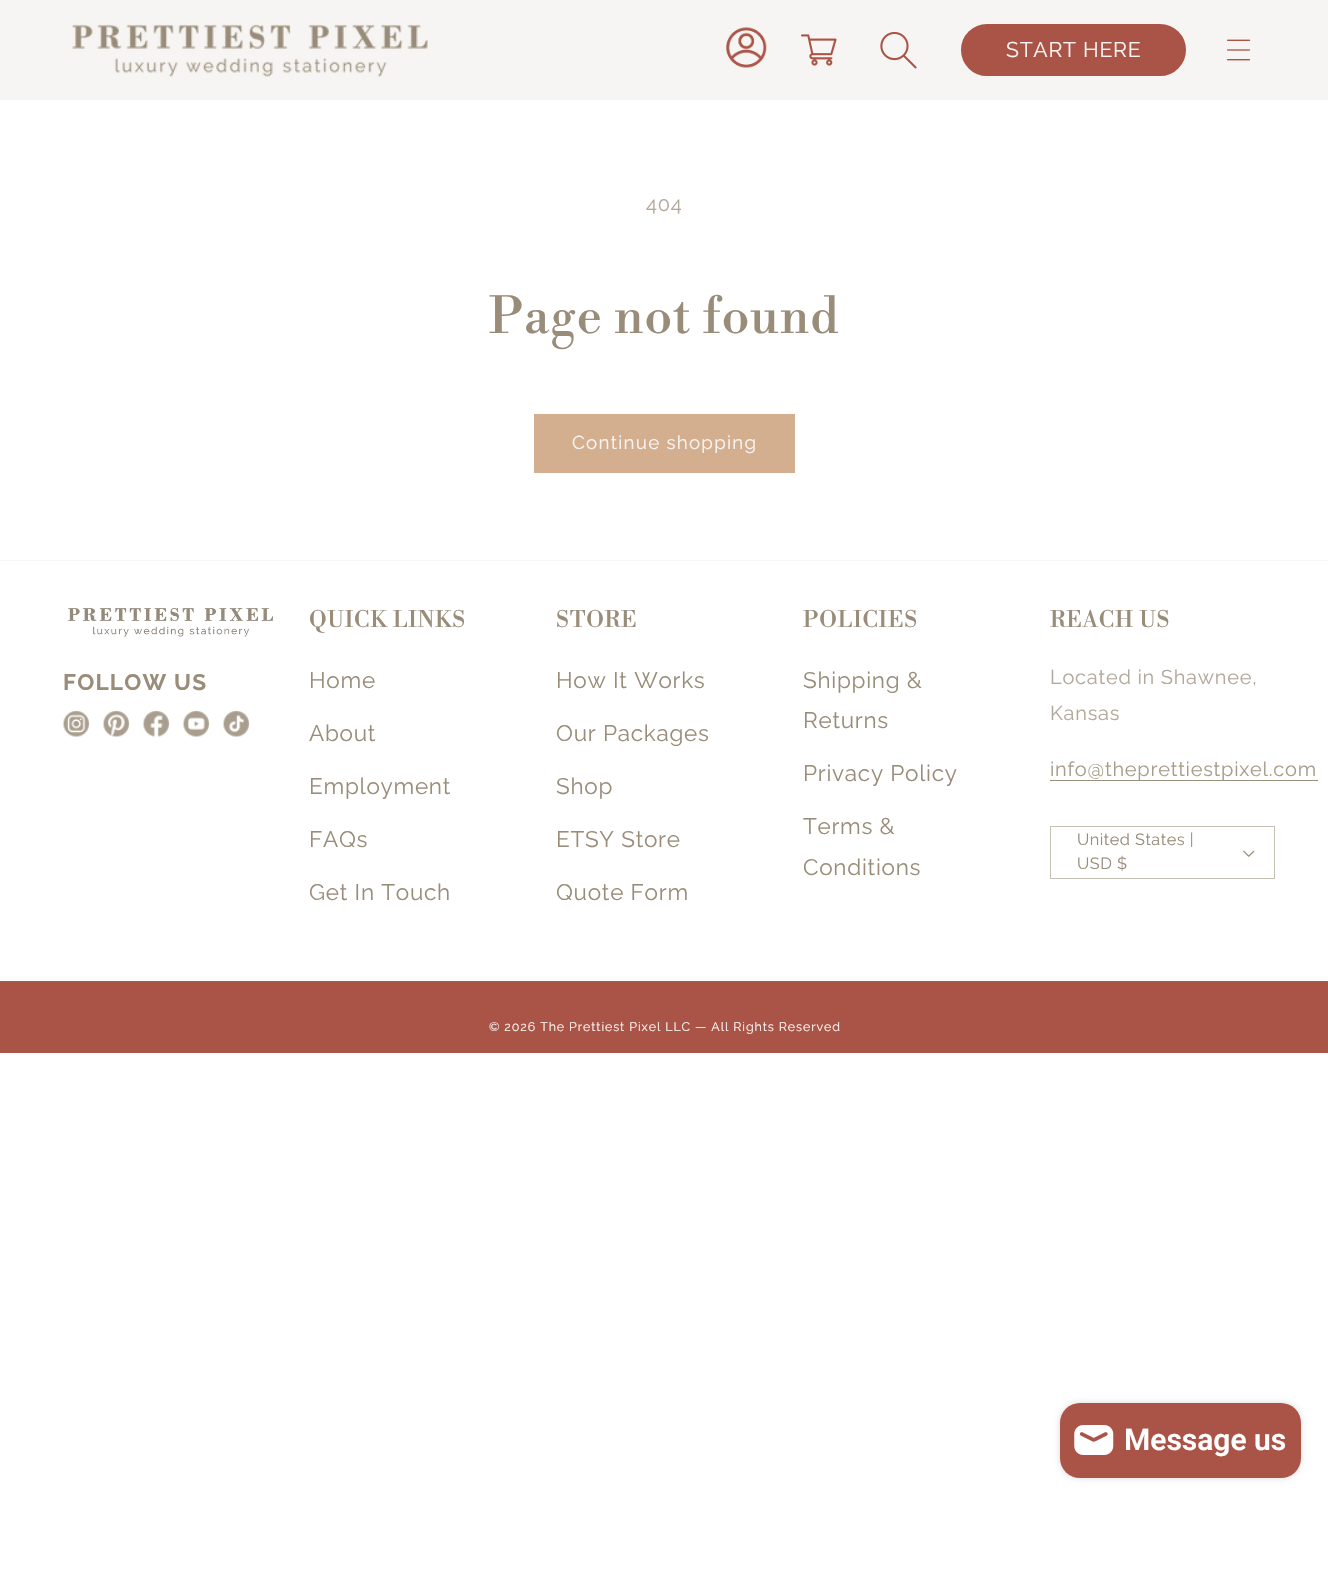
#include "include/core/SkBlurTypes.h"
#include "include/core/SkCanvas.h"
#include "include/core/SkData.h"
#include "include/core/SkFont.h"
#include "include/core/SkFontMgr.h"
#include "include/core/SkImage.h"
#include "include/core/SkMaskFilter.h"
#include "include/core/SkPaint.h"
#include "include/core/SkPathBuilder.h"
#include "include/core/SkTextBlob.h"
#include "include/effects/SkDashPathEffect.h"
#include "include/effects/SkGradientShader.h"
#include "include/utils/SkParsePath.h"

extern sk_sp<SkFontMgr> fontMgr;

static SkFont font(const char* family, int weight, float size, bool italic = false) {
    SkFontStyle style(weight, SkFontStyle::kNormal_Width,
        italic ? SkFontStyle::kItalic_Slant : SkFontStyle::kUpright_Slant);
    SkFont result(fontMgr->matchFamilyStyle(family, style), size);
    result.setSubpixel(true);
    return result;
}

static void drawLabel(SkCanvas* canvas, const char* s, float x, float y, const SkFont& font, SkColor color) {
    SkPaint ink(SkColor4f::FromColor(color));
    ink.setAntiAlias(true);
    canvas->drawString(s, x, y, font, ink);
}

static void drawTracked(SkCanvas* canvas, const char* s, float x, float y, const SkFont& font, const SkPaint& ink, float letter, float word) {
    std::vector<SkGlyphID> glyphs(font.countText(s, strlen(s), SkTextEncoding::kUTF8));
    std::vector<float> xs(glyphs.size());
    font.textToGlyphs(s, strlen(s), SkTextEncoding::kUTF8, glyphs);
    font.getXPos(glyphs, xs, x);
    float extra = 0;
    for (size_t i = 0; i < glyphs.size(); i++) {
        xs[i] += extra;
        extra += letter + word * (glyphs[i] == font.unicharToGlyph(' '));
    }
    canvas->drawTextBlob(SkTextBlob::MakeFromPosHGlyphs(glyphs, xs, y, font), 0, 0, ink);
}

static void fillRect(SkCanvas* canvas, float x, float y, float w, float h, SkColor color) {
    SkPaint ink(SkColor4f::FromColor(color));
    ink.setAntiAlias(true);
    canvas->drawRect(SkRect::MakeXYWH(x, y, w, h), ink);
}

static void fillRRect(SkCanvas* canvas, float x, float y, float w, float h, float radius, SkColor color) {
    SkPaint ink(SkColor4f::FromColor(color));
    ink.setAntiAlias(true);
    canvas->drawRoundRect(SkRect::MakeXYWH(x, y, w, h), radius, radius, ink);
}

static void drawPhoto(SkCanvas* canvas, const char* path, float x, float y, float w, float h) {
    auto image = SkImages::DeferredFromEncodedData(SkData::MakeFromFileName(path));
    canvas->drawImageRect(image, SkRect::MakeXYWH(x, y, w, h), SkSamplingOptions());
}

void draw(SkCanvas* canvas) {
    SkPaint paint;
    paint.setAntiAlias(true);
    canvas->clear(0xFFFFFFFF);
    fillRect(canvas, 0, 0, 1328, 100, 0xFFF7F5F3);
    drawPhoto(canvas, "assets/img1.png", 72, 24, 356, 53);
    drawPhoto(canvas, "assets/img2.png", 726, 27, 41, 41);
    drawPhoto(canvas, "assets/img3.png", 801, 34, 36, 32);
    drawPhoto(canvas, "assets/img4.png", 880, 31, 37, 38);
    paint.setColor(0xFFAA5347);
    canvas->drawRoundRect(SkRect::MakeXYWH(962.5f, 25.5f, 222, 49), 24.5f, 24.5f, paint);
    paint.setStroke(true);
    paint.setStrokeWidth(3);
    canvas->drawRoundRect(SkRect::MakeXYWH(962.5f, 25.5f, 222, 49), 24.5f, 24.5f, paint);
    SkFont font1 = font("Raleway", 400, 21.25f);
    paint.setStroke(false);
    paint.setColor(0xFFF7F5F3);
    drawTracked(canvas, "START HERE", 1006, 57, font1, paint, 0.75f, 0);
    drawPhoto(canvas, "assets/img5.png", 1227, 39, 24, 22);
    SkFont font2 = font("Raleway", 400, 20);
    paint.setColor(0xFFB3A99B);
    drawTracked(canvas, "404", 646, 211, font2, paint, 0.75f, 0);
    SkFont font3 = font("Libre Bodoni", 400, 50);
    paint.setColor(0xFF998C79);
    drawTracked(canvas, "Page not found", 489, 333, font3, paint, 0.75f, 0);
    fillRect(canvas, 534, 414, 261, 59, 0xFFD4AF8F);
    SkFont font4 = font("Raleway", 400, 18.75f);
    paint.setColor(0xFFF7F5F3);
    drawTracked(canvas, "Continue shopping", 572, 449, font4, paint, 1.25f, 0);
    fillRect(canvas, 0, 560, 1328, 1, 0xFFF7F6F4);
    drawPhoto(canvas, "assets/img6.png", 68, 608, 205, 29);
    SkFont font5 = font("Raleway", 700, 22.5f);
    paint.setColor(0xFF998C79);
    drawTracked(canvas, "FOLLOW US", 63, 690, font5, paint, 1.25f, 0);
    drawPhoto(canvas, "assets/img7.png", 62, 710, 28, 27);
    drawPhoto(canvas, "assets/img8.png", 103, 710, 27, 27);
    drawPhoto(canvas, "assets/img9.png", 142, 710, 28, 27);
    drawPhoto(canvas, "assets/img10.png", 182, 710, 28, 27);
    drawPhoto(canvas, "assets/img11.png", 223, 710, 27, 27);
    SkFont font6 = font("Libre Bodoni", 400, 22.5f);
    drawTracked(canvas, "QUICK LINKS", 309, 627, font6, paint, 0.75f, 0);
    SkFont font7 = font("Raleway", 400, 22.5f);
    drawTracked(canvas, "Home", 309, 688, font7, paint, 0.75f, 0);
    drawTracked(canvas, "About", 309, 741, font7, paint, 0.75f, 0);
    drawTracked(canvas, "Employment", 309, 794, font7, paint, 0.75f, 0);
    drawTracked(canvas, "FAQs", 309, 847, font7, paint, 0.75f, 0);
    drawTracked(canvas, "Get In Touch", 309, 900, font7, paint, 0.75f, 0);
    drawTracked(canvas, "STORE", 556, 627, font6, paint, 0.75f, 0);
    drawTracked(canvas, "How It Works", 556, 688, font7, paint, 0.75f, 0);
    drawTracked(canvas, "Our Packages", 556, 741, font7, paint, 0.75f, 0);
    drawTracked(canvas, "Shop", 556, 794, font7, paint, 0.75f, 0);
    drawTracked(canvas, "ETSY Store", 556, 847, font7, paint, 0.75f, 0);
    drawTracked(canvas, "Quote Form", 556, 900, font7, paint, 0.75f, 0);
    drawTracked(canvas, "POLICIES", 803, 627, font6, paint, 0.75f, 0);
    drawTracked(canvas, "Shipping &", 803, 688, font7, paint, 0.75f, 0);
    drawTracked(canvas, "Returns", 803, 728, font7, paint, 0.75f, 0);
    drawTracked(canvas, "Privacy Policy", 803, 781, font7, paint, 0.75f, 0);
    drawTracked(canvas, "Terms &", 803, 834, font7, paint, 0.75f, 0);
    drawTracked(canvas, "Conditions", 803, 875, font7, paint, 0.75f, 0);
    drawTracked(canvas, "REACH US", 1050, 627, font6, paint, 0.75f, 0);
    paint.setColor(0xFFB3A99B);
    drawTracked(canvas, "Located in Shawnee,", 1050, 684, font2, paint, 0.75f, 0);
    drawTracked(canvas, "Kansas", 1050, 720, font2, paint, 0.75f, 0);
    fillRect(canvas, 1050, 780, 268, 1, 0xFF9B8F7C);
    paint.setColor(0xFFA89D8D);
    drawTracked(canvas, "info@theprettiestpixel.com", 1050, 776, font2, paint, 0.75f, 0);
    drawPhoto(canvas, "assets/img12.png", 1243, 850, 12, 7);
    paint.setStroke(true);
    paint.setStrokeWidth(1);
    paint.setColor(0xFFC7C0B5);
    canvas->drawRect(SkRect::MakeXYWH(1050.5f, 826.5f, 224, 52), paint);
    SkFont font8 = font("Raleway", 400, 16.25f);
    paint.setStroke(false);
    paint.setColor(0xFF998C79);
    drawTracked(canvas, "United States |", 1077, 845, font8, paint, 0.5f, 0);
    drawTracked(canvas, "USD $", 1077, 869, font8, paint, 0.5f, 0);
    fillRect(canvas, 0, 982, 1328, 71, 0xFFAA5347);
    fillRect(canvas, 0, 981, 1328, 1, 0xFFA9584B);
    SkFont font9 = font("Raleway", 400, 12.5f);
    paint.setColor(0xFFF7F5F3);
    drawTracked(canvas, "© 2026 The Prettiest Pixel LLC — All Rights Reserved", 489, 1031, font9, paint, 0.88f, 0);
    paint.setColor(0x26000000);
    paint.setMaskFilter(SkMaskFilter::MakeBlur(kNormal_SkBlurStyle, 3));
    canvas->drawRoundRect(SkRect::MakeXYWH(1060, 1403, 241, 75), 20, 20, paint);
    paint.setMaskFilter(nullptr);
    fillRRect(canvas, 1060, 1403, 241, 75, 20, 0xFFAA5347);
    drawPhoto(canvas, "assets/img13.png", 1074, 1425, 40, 30);
    SkFont font10 = font("Roboto", 600, 30);
    drawLabel(canvas, "Message us", 1124, 1450, font10, 0xFFFFFFFF);
}
